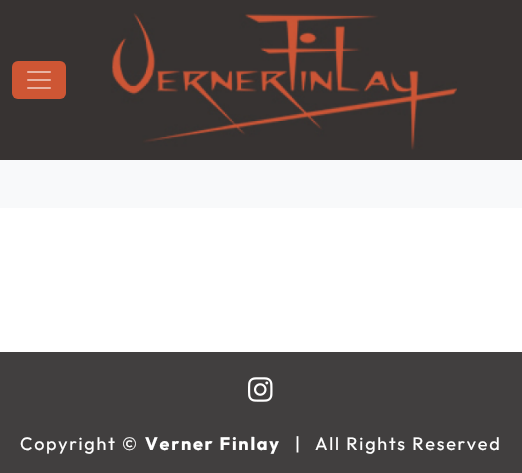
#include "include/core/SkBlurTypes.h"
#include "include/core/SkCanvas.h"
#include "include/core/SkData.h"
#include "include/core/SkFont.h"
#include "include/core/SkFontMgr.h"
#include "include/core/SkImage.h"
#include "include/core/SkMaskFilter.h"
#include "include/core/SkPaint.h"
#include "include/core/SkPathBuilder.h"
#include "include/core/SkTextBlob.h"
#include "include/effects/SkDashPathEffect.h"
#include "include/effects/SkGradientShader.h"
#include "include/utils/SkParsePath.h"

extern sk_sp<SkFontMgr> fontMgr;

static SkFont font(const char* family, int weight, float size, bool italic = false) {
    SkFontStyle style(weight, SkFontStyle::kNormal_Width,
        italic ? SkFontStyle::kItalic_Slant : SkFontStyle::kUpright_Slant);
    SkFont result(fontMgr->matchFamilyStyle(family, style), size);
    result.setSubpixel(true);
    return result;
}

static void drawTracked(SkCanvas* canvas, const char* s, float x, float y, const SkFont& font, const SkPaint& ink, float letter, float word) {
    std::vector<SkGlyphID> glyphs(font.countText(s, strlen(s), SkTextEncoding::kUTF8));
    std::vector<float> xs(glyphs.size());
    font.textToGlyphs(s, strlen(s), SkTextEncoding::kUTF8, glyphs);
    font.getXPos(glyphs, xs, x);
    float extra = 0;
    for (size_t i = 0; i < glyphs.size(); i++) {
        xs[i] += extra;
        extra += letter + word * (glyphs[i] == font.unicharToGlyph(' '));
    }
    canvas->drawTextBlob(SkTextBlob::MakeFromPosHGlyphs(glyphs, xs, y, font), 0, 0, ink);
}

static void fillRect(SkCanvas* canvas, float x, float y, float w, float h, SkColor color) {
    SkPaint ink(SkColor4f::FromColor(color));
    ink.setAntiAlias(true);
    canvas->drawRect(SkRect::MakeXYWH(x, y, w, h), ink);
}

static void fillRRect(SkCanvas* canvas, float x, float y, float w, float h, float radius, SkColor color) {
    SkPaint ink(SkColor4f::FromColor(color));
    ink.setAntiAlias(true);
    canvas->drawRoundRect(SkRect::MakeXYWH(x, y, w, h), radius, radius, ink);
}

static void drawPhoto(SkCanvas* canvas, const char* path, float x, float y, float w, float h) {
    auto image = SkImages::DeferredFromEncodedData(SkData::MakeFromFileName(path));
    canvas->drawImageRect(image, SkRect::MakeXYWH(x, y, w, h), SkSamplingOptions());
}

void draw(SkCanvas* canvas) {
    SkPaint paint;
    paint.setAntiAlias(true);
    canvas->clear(0xFF373332);
    fillRRect(canvas, 12, 61, 54, 38, 6, 0xFFCE5634);
    drawPhoto(canvas, "assets/img1.png", 27, 71, 24, 18);
    drawPhoto(canvas, "assets/img2.png", 111, 13, 346, 137);
    fillRect(canvas, 0, 160, 522, 48, 0xFFF8F9FA);
    fillRect(canvas, 0, 208, 522, 144, 0xFFFFFFFF);
    fillRect(canvas, 0, 352, 522, 121, 0xFF413F3F);
    drawPhoto(canvas, "assets/img3.png", 248, 377, 25, 25);
    SkFont font1 = font("Outfit", 400, 18);
    paint.setColor(0xFFFFFFFF);
    drawTracked(canvas, "Copyright ©", 20, 450, font1, paint, 1.75f, 0);
    SkFont font2 = font("Outfit", 700, 18);
    drawTracked(canvas, "Verner Finlay", 145, 450, font2, paint, 1.75f, 0);
    drawTracked(canvas, "|", 295, 450, font1, paint, 1.75f, 0);
    drawTracked(canvas, "All Rights Reserved", 315, 450, font1, paint, 1.75f, 0);
}
